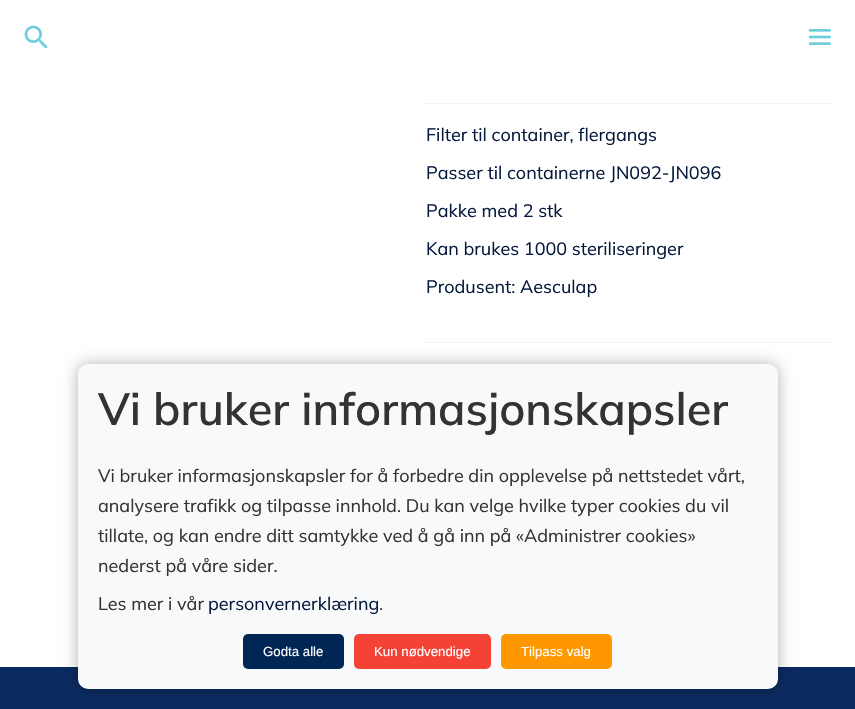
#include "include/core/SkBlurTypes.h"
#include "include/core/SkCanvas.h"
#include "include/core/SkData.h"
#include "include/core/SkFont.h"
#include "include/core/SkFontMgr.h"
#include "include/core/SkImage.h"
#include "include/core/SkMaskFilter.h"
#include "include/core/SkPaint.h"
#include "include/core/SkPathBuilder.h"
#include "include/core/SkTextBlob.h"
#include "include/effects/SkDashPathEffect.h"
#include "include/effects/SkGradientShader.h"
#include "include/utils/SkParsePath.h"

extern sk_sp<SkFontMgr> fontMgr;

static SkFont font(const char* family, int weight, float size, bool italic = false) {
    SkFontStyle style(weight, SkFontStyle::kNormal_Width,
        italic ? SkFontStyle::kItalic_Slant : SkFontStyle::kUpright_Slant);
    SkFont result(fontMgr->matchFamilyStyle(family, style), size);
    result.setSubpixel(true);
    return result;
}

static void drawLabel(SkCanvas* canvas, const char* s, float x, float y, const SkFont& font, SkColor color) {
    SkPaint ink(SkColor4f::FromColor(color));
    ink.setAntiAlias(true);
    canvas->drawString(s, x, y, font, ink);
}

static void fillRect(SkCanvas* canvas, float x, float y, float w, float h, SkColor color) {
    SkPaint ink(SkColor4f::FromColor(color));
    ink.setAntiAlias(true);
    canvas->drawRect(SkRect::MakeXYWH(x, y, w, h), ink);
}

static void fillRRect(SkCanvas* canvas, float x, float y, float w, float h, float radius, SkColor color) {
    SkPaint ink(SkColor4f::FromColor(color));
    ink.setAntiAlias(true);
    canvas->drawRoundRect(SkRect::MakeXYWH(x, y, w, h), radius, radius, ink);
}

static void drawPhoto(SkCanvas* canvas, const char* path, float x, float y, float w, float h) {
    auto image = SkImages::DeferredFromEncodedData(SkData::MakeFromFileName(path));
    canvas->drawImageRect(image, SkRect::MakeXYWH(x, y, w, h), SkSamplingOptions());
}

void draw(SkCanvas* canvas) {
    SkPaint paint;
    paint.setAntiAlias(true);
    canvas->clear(0xFFFFFFFF);
    fillRect(canvas, 426, 103, 405, 1, 0xFFEEF2F9);
    fillRect(canvas, 426, 342, 405, 1, 0xFFEEF2F9);
    SkFont font1 = font("Mulish", 400, 18);
    drawLabel(canvas, "Filter til container, flergangs", 426, 141, font1, 0xFF05193C);
    drawLabel(canvas, "Passer til containerne JN092-JN096", 426, 179, font1, 0xFF05193C);
    drawLabel(canvas, "Pakke med 2 stk", 426, 217, font1, 0xFF05193C);
    drawLabel(canvas, "Kan brukes 1000 steriliseringer", 426, 255, font1, 0xFF05193C);
    drawLabel(canvas, "Produsent: Aesculap", 426, 293, font1, 0xFF05193C);
    drawPhoto(canvas, "assets/img1.png", 24, 25, 24, 24);
    drawPhoto(canvas, "assets/img2.png", 808, 29, 23, 16);
    fillRect(canvas, 0, 667, 855, 42, 0xFF0B2A60);
    paint.setColor(0x4D000000);
    paint.setMaskFilter(SkMaskFilter::MakeBlur(kNormal_SkBlurStyle, 7.5f));
    canvas->drawRoundRect(SkRect::MakeXYWH(78, 364, 700, 325), 10, 10, paint);
    paint.setMaskFilter(nullptr);
    fillRRect(canvas, 78, 364, 700, 325, 10, 0xFFF8F9FA);
    SkFont font2 = font("Mulish", 600, 45);
    drawLabel(canvas, "Vi bruker informasjonskapsler", 98, 425, font2, 0xFF333333);
    drawLabel(canvas, "Vi bruker informasjonskapsler for å forbedre din opplevelse på nettstedet vårt,", 98, 482, font1, 0xFF333333);
    drawLabel(canvas, "analysere trafikk og tilpasse innhold. Du kan velge hvilke typer cookies du vil", 98, 512, font1, 0xFF333333);
    drawLabel(canvas, "tillate, og kan endre ditt samtykke ved å gå inn på «Administrer cookies»", 98, 542, font1, 0xFF333333);
    drawLabel(canvas, "nederst på våre sider.", 98, 572, font1, 0xFF333333);
    drawLabel(canvas, "Les mer i vår", 98, 610, font1, 0xFF333333);
    drawLabel(canvas, "personvernerklæring", 208, 610, font1, 0xFF05193C);
    drawLabel(canvas, ".", 379, 610, font1, 0xFF333333);
    fillRRect(canvas, 243, 634, 101, 35, 5, 0xFF002656);
    SkFont font3 = font("Liberation Sans", 400, 13.25f);
    drawLabel(canvas, "Godta alle", 263, 656, font3, 0xFFFFFFFF);
    fillRRect(canvas, 354, 634, 137, 35, 5, 0xFFF44336);
    drawLabel(canvas, "Kun nødvendige", 374, 656, font3, 0xFFFFFFFF);
    fillRRect(canvas, 501, 634, 111, 35, 5, 0xFFFF9800);
    drawLabel(canvas, "Tilpass valg", 521, 656, font3, 0xFFFFFFFF);
}
